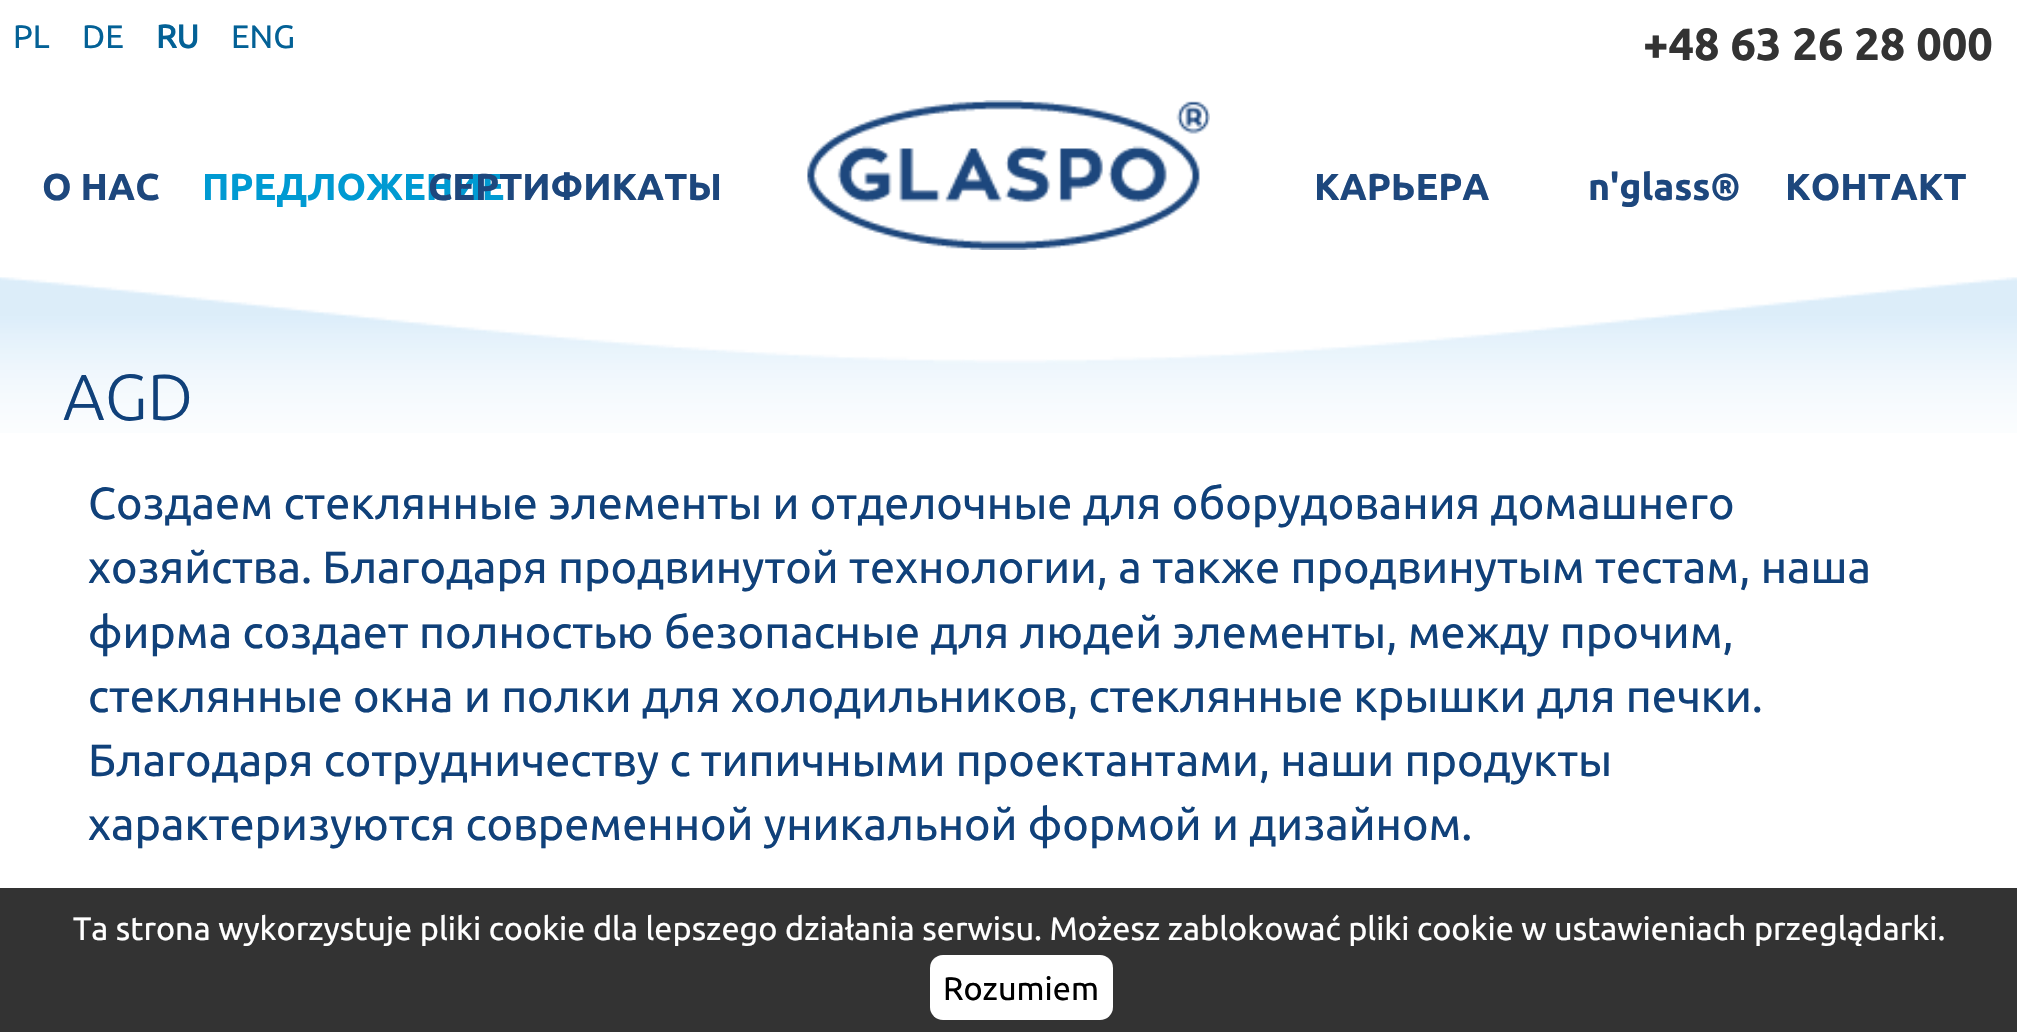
#include "include/core/SkBlurTypes.h"
#include "include/core/SkCanvas.h"
#include "include/core/SkData.h"
#include "include/core/SkFont.h"
#include "include/core/SkFontMgr.h"
#include "include/core/SkImage.h"
#include "include/core/SkMaskFilter.h"
#include "include/core/SkPaint.h"
#include "include/core/SkPathBuilder.h"
#include "include/core/SkTextBlob.h"
#include "include/effects/SkDashPathEffect.h"
#include "include/effects/SkGradientShader.h"
#include "include/utils/SkParsePath.h"

extern sk_sp<SkFontMgr> fontMgr;

static SkFont font(const char* family, int weight, float size, bool italic = false) {
    SkFontStyle style(weight, SkFontStyle::kNormal_Width,
        italic ? SkFontStyle::kItalic_Slant : SkFontStyle::kUpright_Slant);
    SkFont result(fontMgr->matchFamilyStyle(family, style), size);
    result.setSubpixel(true);
    return result;
}

static void drawLabel(SkCanvas* canvas, const char* s, float x, float y, const SkFont& font, SkColor color) {
    SkPaint ink(SkColor4f::FromColor(color));
    ink.setAntiAlias(true);
    canvas->drawString(s, x, y, font, ink);
}

static void fillRect(SkCanvas* canvas, float x, float y, float w, float h, SkColor color) {
    SkPaint ink(SkColor4f::FromColor(color));
    ink.setAntiAlias(true);
    canvas->drawRect(SkRect::MakeXYWH(x, y, w, h), ink);
}

static void fillRRect(SkCanvas* canvas, float x, float y, float w, float h, float radius, SkColor color) {
    SkPaint ink(SkColor4f::FromColor(color));
    ink.setAntiAlias(true);
    canvas->drawRoundRect(SkRect::MakeXYWH(x, y, w, h), radius, radius, ink);
}

static void drawPhoto(SkCanvas* canvas, const char* path, float x, float y, float w, float h) {
    auto image = SkImages::DeferredFromEncodedData(SkData::MakeFromFileName(path));
    canvas->drawImageRect(image, SkRect::MakeXYWH(x, y, w, h), SkSamplingOptions());
}

void draw(SkCanvas* canvas) {
    SkPaint paint;
    paint.setAntiAlias(true);
    canvas->clear(0xFFFFFFFF);
    drawPhoto(canvas, "assets/img1.png", 0, 277, 2017, 156);
    SkFont font1 = font("Ubuntu", 400, 32.5f);
    drawLabel(canvas, "PL", 13, 48, font1, 0xFF036196);
    drawLabel(canvas, "DE", 82, 48, font1, 0xFF036196);
    SkFont font2 = font("Ubuntu", 700, 32.5f);
    drawLabel(canvas, "RU", 156, 48, font2, 0xFF036196);
    drawLabel(canvas, "ENG", 231, 48, font1, 0xFF036196);
    SkFont font3 = font("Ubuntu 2", 700, 45);
    drawLabel(canvas, "+48 63 26 28 000", 1643, 60, font3, 0xFF333333);
    drawPhoto(canvas, "assets/img2.png", 807, 100, 403, 150);
    SkFont font4 = font("Ubuntu 2", 700, 37.5f);
    drawLabel(canvas, "O НАС", 42, 200, font4, 0xFF1D477D);
    drawLabel(canvas, "ПРЕДЛОЖЕНИЕ", 202, 200, font4, 0xFF009AD2);
    drawLabel(canvas, "CEРТИФИКАТЫ", 428, 200, font4, 0xFF1D477D);
    drawLabel(canvas, "КАРЬЕРА", 1314, 200, font4, 0xFF1D477D);
    drawLabel(canvas, "n'glass®", 1588, 200, font4, 0xFF1D477D);
    drawLabel(canvas, "КОНТАКТ", 1785, 200, font4, 0xFF1D477D);
    SkFont font5 = font("Ubuntu", 300, 65);
    drawLabel(canvas, "AGD", 63, 420, font5, 0xFF10417A);
    SkFont font6 = font("Ubuntu", 400, 45);
    drawLabel(canvas, "Создаем стеклянные элементы и отделочные для оборудования домашнего", 88, 519, font6, 0xFF10417A);
    drawLabel(canvas, "хозяйства. Благодаря продвинутой технологии, а также продвинутым тестам, наша", 88, 583, font6, 0xFF10417A);
    drawLabel(canvas, "фирма создает полностью безопасные для людей элементы, между прочим,", 88, 648, font6, 0xFF10417A);
    drawLabel(canvas, "стеклянные окна и полки для холодильников, стеклянные крышки для печки.", 88, 712, font6, 0xFF10417A);
    drawLabel(canvas, "Благодаря сотрудничеству с типичными проектантами, наши продукты", 88, 776, font6, 0xFF10417A);
    drawLabel(canvas, "характеризуются современной уникальной формой и дизайном.", 88, 840, font6, 0xFF10417A);
    fillRect(canvas, 0, 888, 2017, 144, 0xFF333333);
    drawLabel(canvas, "Ta strona wykorzystuje pliki cookie dla lepszego działania serwisu. Możesz zablokować pliki cookie w ustawieniach przeglądarki.", 73, 940, font1, 0xFFFFFFFF);
    fillRRect(canvas, 930, 955, 183, 65, 13, 0xFFFFFFFF);
    drawLabel(canvas, "Rozumiem", 943, 1000, font1, 0xFF000000);
}
